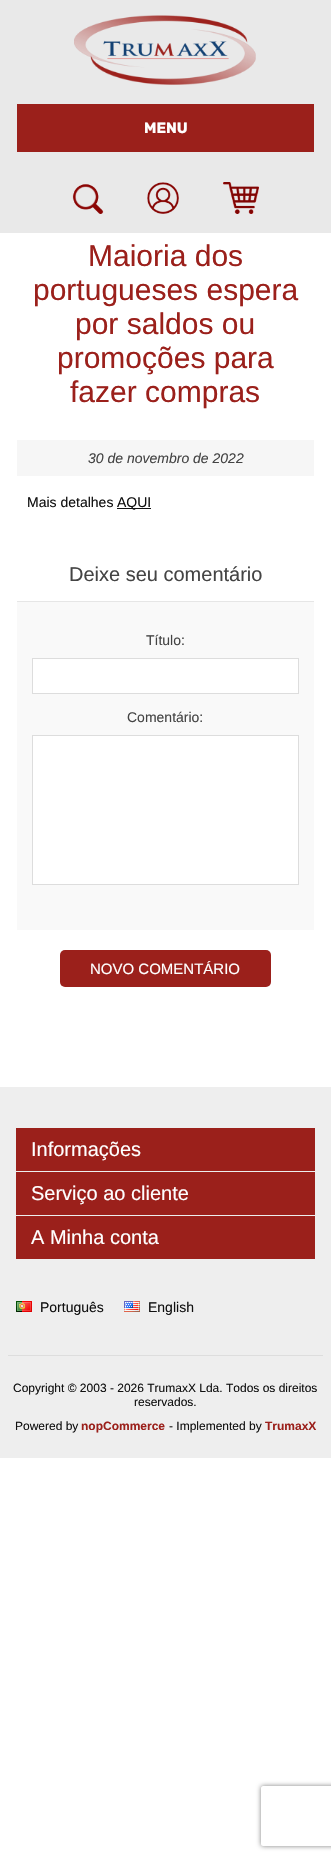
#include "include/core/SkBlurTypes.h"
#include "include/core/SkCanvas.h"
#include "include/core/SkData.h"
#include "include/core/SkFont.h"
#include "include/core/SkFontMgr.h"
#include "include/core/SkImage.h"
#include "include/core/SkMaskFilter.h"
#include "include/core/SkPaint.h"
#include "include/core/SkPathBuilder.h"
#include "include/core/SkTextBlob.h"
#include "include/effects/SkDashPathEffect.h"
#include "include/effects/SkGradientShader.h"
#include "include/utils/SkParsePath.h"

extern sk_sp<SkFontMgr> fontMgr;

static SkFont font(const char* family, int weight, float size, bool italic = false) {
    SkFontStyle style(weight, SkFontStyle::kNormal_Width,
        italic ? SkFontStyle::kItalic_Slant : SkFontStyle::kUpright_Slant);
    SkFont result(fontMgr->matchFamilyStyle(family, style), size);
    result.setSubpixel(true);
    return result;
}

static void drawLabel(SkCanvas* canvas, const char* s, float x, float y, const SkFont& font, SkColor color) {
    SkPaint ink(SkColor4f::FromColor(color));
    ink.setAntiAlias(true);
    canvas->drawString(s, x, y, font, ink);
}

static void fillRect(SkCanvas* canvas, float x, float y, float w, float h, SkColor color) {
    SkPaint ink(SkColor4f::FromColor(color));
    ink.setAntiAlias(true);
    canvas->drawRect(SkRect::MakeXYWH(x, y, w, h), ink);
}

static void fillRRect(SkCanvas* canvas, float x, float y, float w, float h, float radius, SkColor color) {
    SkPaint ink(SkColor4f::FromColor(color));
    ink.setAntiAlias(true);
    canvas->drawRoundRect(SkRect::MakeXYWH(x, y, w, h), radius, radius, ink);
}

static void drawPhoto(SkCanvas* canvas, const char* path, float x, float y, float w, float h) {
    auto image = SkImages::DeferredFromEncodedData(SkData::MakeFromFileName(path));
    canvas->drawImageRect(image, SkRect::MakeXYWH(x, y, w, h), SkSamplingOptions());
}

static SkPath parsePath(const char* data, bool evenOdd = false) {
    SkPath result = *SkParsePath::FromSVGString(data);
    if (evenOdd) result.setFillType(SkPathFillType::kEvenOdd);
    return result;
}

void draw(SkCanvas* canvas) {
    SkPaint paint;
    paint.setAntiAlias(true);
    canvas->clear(0xFFFFFFFF);
    fillRect(canvas, 0, 0, 331, 233, 0xFFE9E9E9);
    drawPhoto(canvas, "assets/img1.png", 74, 15, 182, 70);
    fillRect(canvas, 17, 104, 297, 48, 0xFF9B201B);
    SkFont font1 = font("Rubik", 700, 15);
    drawLabel(canvas, "MENU", 144, 133, font1, 0xFFFFFFFF);
    drawPhoto(canvas, "assets/img2.png", 72, 184, 32, 30);
    drawPhoto(canvas, "assets/img3.png", 147, 182, 32, 32);
    drawPhoto(canvas, "assets/img4.png", 223, 182, 36, 32);
    SkFont font2 = font("Liberation Sans", 400, 30);
    drawLabel(canvas, "Maioria dos", 88, 266, font2, 0xFF9B201B);
    drawLabel(canvas, "portugueses espera", 33, 300, font2, 0xFF9B201B);
    drawLabel(canvas, "por saldos ou", 75, 334, font2, 0xFF9B201B);
    drawLabel(canvas, "promoções para", 57, 368, font2, 0xFF9B201B);
    drawLabel(canvas, "fazer compras", 70, 402, font2, 0xFF9B201B);
    fillRect(canvas, 17, 440, 297, 36, 0xFFF6F6F6);
    SkFont font3 = font("Liberation Sans", 400, 14, true);
    drawLabel(canvas, "30 de novembro de 2022", 88, 463, font3, 0xFF444444);
    SkFont font4 = font("Liberation Sans", 400, 14);
    drawLabel(canvas, "Mais detalhes", 27, 507, font4, 0xFF111111);
    fillRect(canvas, 117, 508, 34, 1, 0xFF111111);
    drawLabel(canvas, "AQUI", 117, 507, font4, 0xFF111111);
    SkFont font5 = font("Liberation Sans", 400, 20);
    drawLabel(canvas, "Deixe seu comentário", 69, 581, font5, 0xFF444444);
    fillRect(canvas, 17, 602, 297, 328, 0xFFF9F9F9);
    fillRect(canvas, 17, 601, 297, 1, 0xFFE6E6E6);
    drawLabel(canvas, "Título:", 146, 645, font4, 0xFF444444);
    paint.setColor(0xFFFFFFFF);
    canvas->drawRect(SkRect::MakeXYWH(32.5f, 658.5f, 266, 35), paint);
    paint.setStroke(true);
    paint.setStrokeWidth(1);
    paint.setColor(0xFFDDDDDD);
    canvas->drawRect(SkRect::MakeXYWH(32.5f, 658.5f, 266, 35), paint);
    drawLabel(canvas, "Comentário:", 127, 722, font4, 0xFF444444);
    paint.setStroke(false);
    paint.setColor(0xFFFFFFFF);
    canvas->drawRect(SkRect::MakeXYWH(32.5f, 735.5f, 266, 149), paint);
    paint.setStroke(true);
    paint.setColor(0xFFDDDDDD);
    canvas->drawRect(SkRect::MakeXYWH(32.5f, 735.5f, 266, 149), paint);
    fillRRect(canvas, 60, 950, 211, 37, 5, 0xFF9B201B);
    SkFont font6 = font("Liberation Sans", 400, 15);
    drawLabel(canvas, "NOVO COMENTÁRIO", 90, 974, font6, 0xFFFFFFFF);
    fillRect(canvas, 0, 1087, 331, 371, 0xFFEEEEEE);
    fillRect(canvas, 8, 1355, 315, 1, 0xFFDDDDDD);
    fillRect(canvas, 16, 1128, 299, 43, 0xFF9B201B);
    drawLabel(canvas, "Informações", 31, 1156, font5, 0xFFFFFFFF);
    fillRect(canvas, 16, 1172, 299, 43, 0xFF9B201B);
    drawLabel(canvas, "Serviço ao cliente", 31, 1200, font5, 0xFFFFFFFF);
    fillRect(canvas, 16, 1216, 299, 43, 0xFF9B201B);
    drawLabel(canvas, "A Minha conta", 31, 1244, font5, 0xFFFFFFFF);
    drawPhoto(canvas, "assets/img5.png", 16, 1301, 16, 11);
    drawLabel(canvas, "Português", 40, 1312, font4, 0xFF111111);
    drawPhoto(canvas, "assets/img6.png", 124, 1301, 16, 11);
    drawLabel(canvas, "English", 148, 1312, font4, 0xFF111111);
    SkFont font7 = font("Liberation Sans", 400, 12);
    drawLabel(canvas, "Copyright © 2003 - 2026 TrumaxX Lda. Todos os direitos", 13, 1392, font7, 0xFF111111);
    drawLabel(canvas, "reservados.", 134, 1406, font7, 0xFF111111);
    drawLabel(canvas, "Powered by", 15, 1430, font7, 0xFF111111);
    SkFont font8 = font("Liberation Sans", 700, 12);
    drawLabel(canvas, "nopCommerce", 81, 1430, font8, 0xFF9B201B);
    drawLabel(canvas, "- Implemented by", 169, 1430, font7, 0xFF111111);
    drawLabel(canvas, "TrumaxX", 265, 1430, font8, 0xFF9B201B);
    canvas->save();
    canvas->clipPath(parsePath("M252 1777H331V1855H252ZM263 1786H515C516 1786 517 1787 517 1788V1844C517 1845 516 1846 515 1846H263C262 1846 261 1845 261 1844V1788C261 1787 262 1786 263 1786Z", true), true);
    paint.setStroke(false);
    paint.setColor(0xFF808080);
    paint.setMaskFilter(SkMaskFilter::MakeBlur(kNormal_SkBlurStyle, 2.5f));
    canvas->drawRoundRect(SkRect::MakeXYWH(261, 1786, 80, 60), 2, 2, paint);
    paint.setMaskFilter(nullptr);
    canvas->restore();
}
